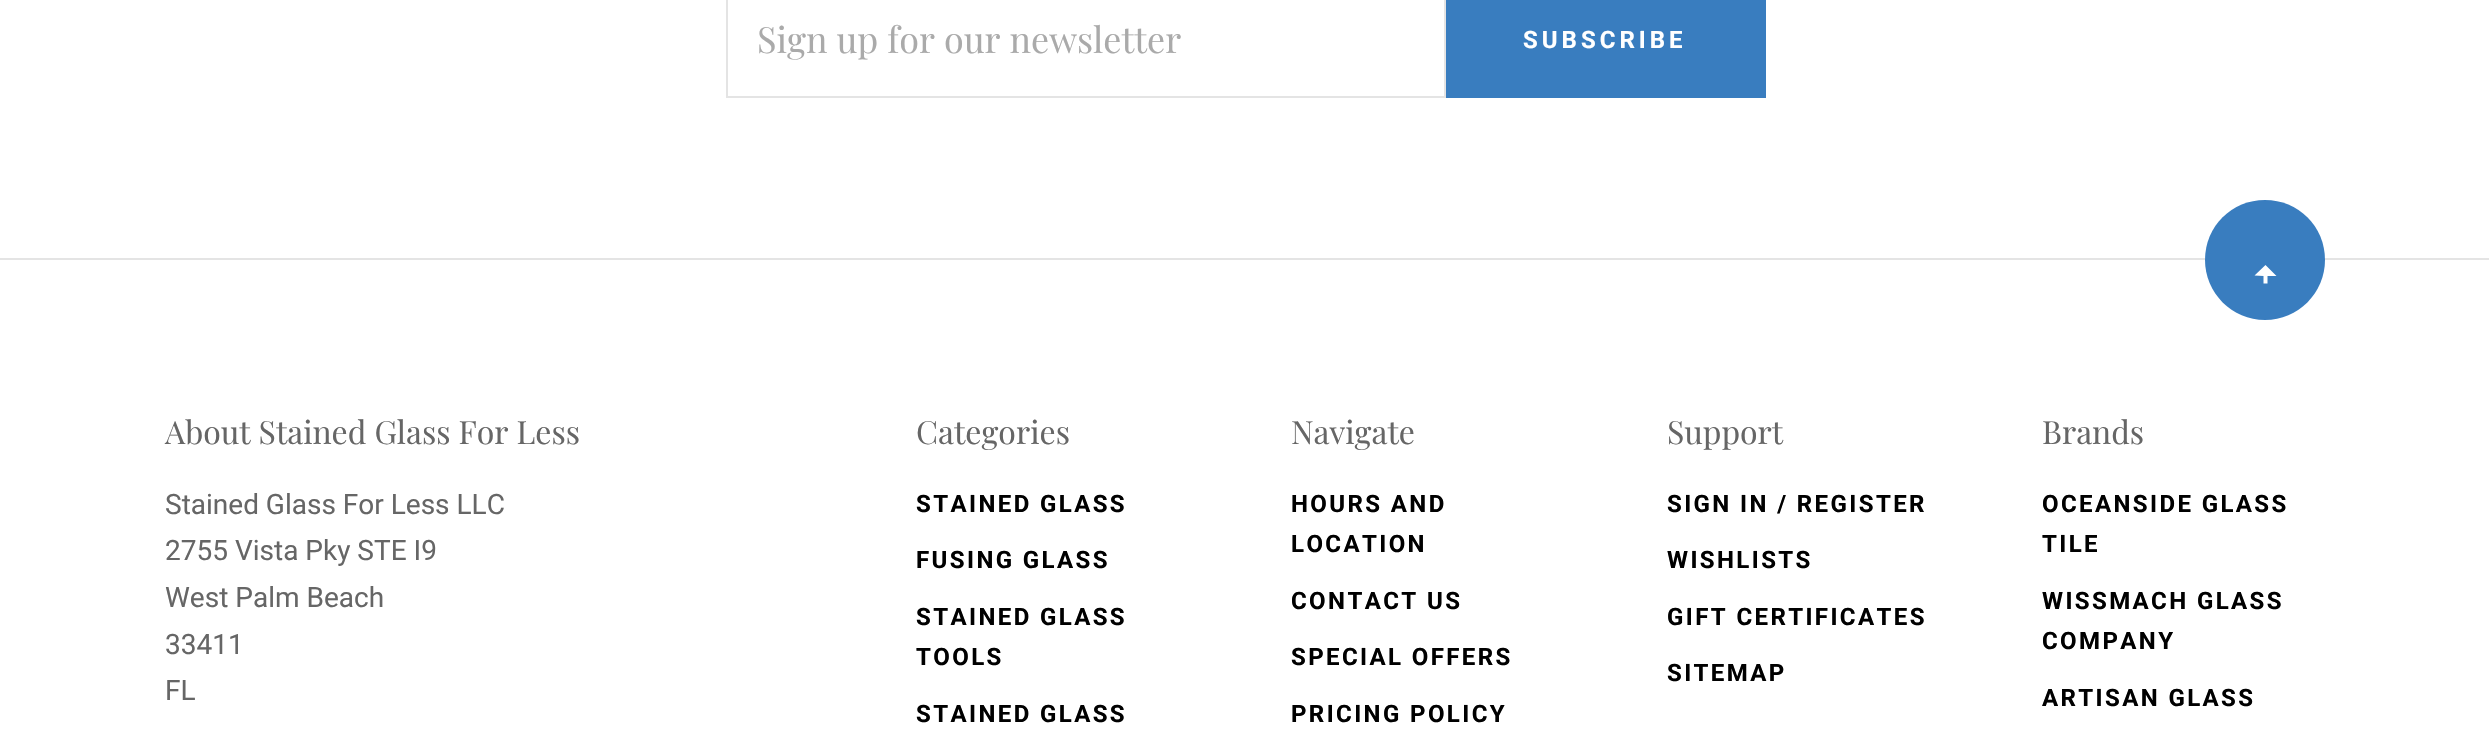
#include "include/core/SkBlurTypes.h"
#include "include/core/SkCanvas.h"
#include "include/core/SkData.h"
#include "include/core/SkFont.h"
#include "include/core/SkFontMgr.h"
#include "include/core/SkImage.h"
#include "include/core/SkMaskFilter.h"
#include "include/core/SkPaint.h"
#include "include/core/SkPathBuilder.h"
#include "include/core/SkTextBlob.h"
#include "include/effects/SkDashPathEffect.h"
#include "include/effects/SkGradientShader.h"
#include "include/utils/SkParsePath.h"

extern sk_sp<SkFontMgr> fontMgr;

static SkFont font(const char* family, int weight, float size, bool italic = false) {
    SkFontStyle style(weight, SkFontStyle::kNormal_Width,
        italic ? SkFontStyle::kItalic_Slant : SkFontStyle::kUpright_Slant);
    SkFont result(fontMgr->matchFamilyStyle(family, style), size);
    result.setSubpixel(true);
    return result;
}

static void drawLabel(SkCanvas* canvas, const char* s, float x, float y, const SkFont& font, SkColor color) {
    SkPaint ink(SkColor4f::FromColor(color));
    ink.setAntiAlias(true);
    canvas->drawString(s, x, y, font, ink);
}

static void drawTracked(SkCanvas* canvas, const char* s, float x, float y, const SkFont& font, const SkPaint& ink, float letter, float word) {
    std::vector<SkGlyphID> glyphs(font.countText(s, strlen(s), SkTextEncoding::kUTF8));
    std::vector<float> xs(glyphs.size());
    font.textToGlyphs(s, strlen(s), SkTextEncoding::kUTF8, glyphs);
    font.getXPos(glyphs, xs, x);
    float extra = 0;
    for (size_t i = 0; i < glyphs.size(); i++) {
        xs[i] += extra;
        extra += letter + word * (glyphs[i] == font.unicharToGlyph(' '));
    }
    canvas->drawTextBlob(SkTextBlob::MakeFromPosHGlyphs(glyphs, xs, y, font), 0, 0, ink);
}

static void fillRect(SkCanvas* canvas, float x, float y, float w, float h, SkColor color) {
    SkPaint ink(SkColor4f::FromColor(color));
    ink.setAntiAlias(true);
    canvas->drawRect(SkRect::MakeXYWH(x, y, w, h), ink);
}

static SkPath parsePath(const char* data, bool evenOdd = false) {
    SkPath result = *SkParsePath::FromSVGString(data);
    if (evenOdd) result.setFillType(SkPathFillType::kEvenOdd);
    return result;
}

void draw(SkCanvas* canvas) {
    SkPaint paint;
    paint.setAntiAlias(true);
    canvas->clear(0xFFFFFFFF);
    paint.setStroke(true);
    paint.setStrokeWidth(2);
    paint.setColor(0xFFE4E4E4);
    canvas->drawRect(SkRect::MakeXYWH(727, -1, 718, 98), paint);
    SkFont font1 = font("Playfair Display", 400, 36);
    drawLabel(canvas, "Sign up for our newsletter", 757, 53, font1, 0xFFAAAAAA);
    fillRect(canvas, 1446, 0, 320, 98, 0xFF397DBF);
    SkFont font2 = font("Roboto", 700, 24);
    paint.setStroke(false);
    paint.setColor(0xFFFFFFFF);
    drawTracked(canvas, "SUBSCRIBE", 1523, 48, font2, paint, 4, 0);
    fillRect(canvas, 0, 258, 2489, 2, 0xFFE4E4E4);
    paint.setColor(0xFF397DBF);
    canvas->drawPath(parsePath("M2205 260C2205 226 2232 200 2265 200C2298 200 2325 226 2325 260C2325 293 2298 320 2265 320C2232 320 2205 293 2205 260Z"), paint);
    paint.setColor(0xFFFFFFFF);
    canvas->drawPath(parsePath("M2265.5 265L2276.5 276H2267.5V283.5H2263.5V276L2254.5 275.5Z"), paint);
    SkFont font3 = font("Playfair Display", 400, 32);
    drawLabel(canvas, "About Stained Glass For Less", 165, 444, font3, 0xFF666666);
    SkFont font4 = font("Roboto", 400, 28);
    drawLabel(canvas, "Stained Glass For Less LLC", 165, 514, font4, 0xFF666666);
    drawLabel(canvas, "2755 Vista Pky STE I9", 165, 560, font4, 0xFF666666);
    drawLabel(canvas, "West Palm Beach", 165, 607, font4, 0xFF666666);
    drawLabel(canvas, "33411", 165, 654, font4, 0xFF666666);
    drawLabel(canvas, "FL", 165, 700, font4, 0xFF666666);
    drawLabel(canvas, "Categories", 916, 444, font3, 0xFF666666);
    paint.setColor(0xFF000000);
    drawTracked(canvas, "STAINED GLASS", 916, 512, font2, paint, 2.4f, 0);
    drawTracked(canvas, "FUSING GLASS", 916, 568, font2, paint, 2.4f, 0);
    drawTracked(canvas, "STAINED GLASS", 916, 625, font2, paint, 2.4f, 0);
    drawTracked(canvas, "TOOLS", 916, 665, font2, paint, 2.4f, 0);
    drawTracked(canvas, "STAINED GLASS", 916, 722, font2, paint, 2.4f, 0);
    drawLabel(canvas, "Navigate", 1291, 444, font3, 0xFF666666);
    drawTracked(canvas, "HOURS AND", 1291, 512, font2, paint, 2.4f, 0);
    drawTracked(canvas, "LOCATION", 1291, 552, font2, paint, 2.4f, 0);
    drawTracked(canvas, "CONTACT US", 1291, 609, font2, paint, 2.4f, 0);
    drawTracked(canvas, "SPECIAL OFFERS", 1291, 665, font2, paint, 2.4f, 0);
    drawTracked(canvas, "PRICING POLICY", 1291, 722, font2, paint, 2.4f, 0);
    drawLabel(canvas, "Support", 1667, 444, font3, 0xFF666666);
    drawTracked(canvas, "SIGN IN / REGISTER", 1667, 512, font2, paint, 2.4f, 0);
    drawTracked(canvas, "WISHLISTS", 1667, 568, font2, paint, 2.4f, 0);
    drawTracked(canvas, "GIFT CERTIFICATES", 1667, 625, font2, paint, 2.4f, 0);
    drawTracked(canvas, "SITEMAP", 1667, 681, font2, paint, 2.4f, 0);
    drawLabel(canvas, "Brands", 2042, 444, font3, 0xFF666666);
    drawTracked(canvas, "OCEANSIDE GLASS", 2042, 512, font2, paint, 2.4f, 0);
    drawTracked(canvas, "TILE", 2042, 552, font2, paint, 2.4f, 0);
    drawTracked(canvas, "WISSMACH GLASS", 2042, 609, font2, paint, 2.4f, 0);
    drawTracked(canvas, "COMPANY", 2042, 649, font2, paint, 2.4f, 0);
    drawTracked(canvas, "ARTISAN GLASS", 2042, 706, font2, paint, 2.4f, 0);
}
